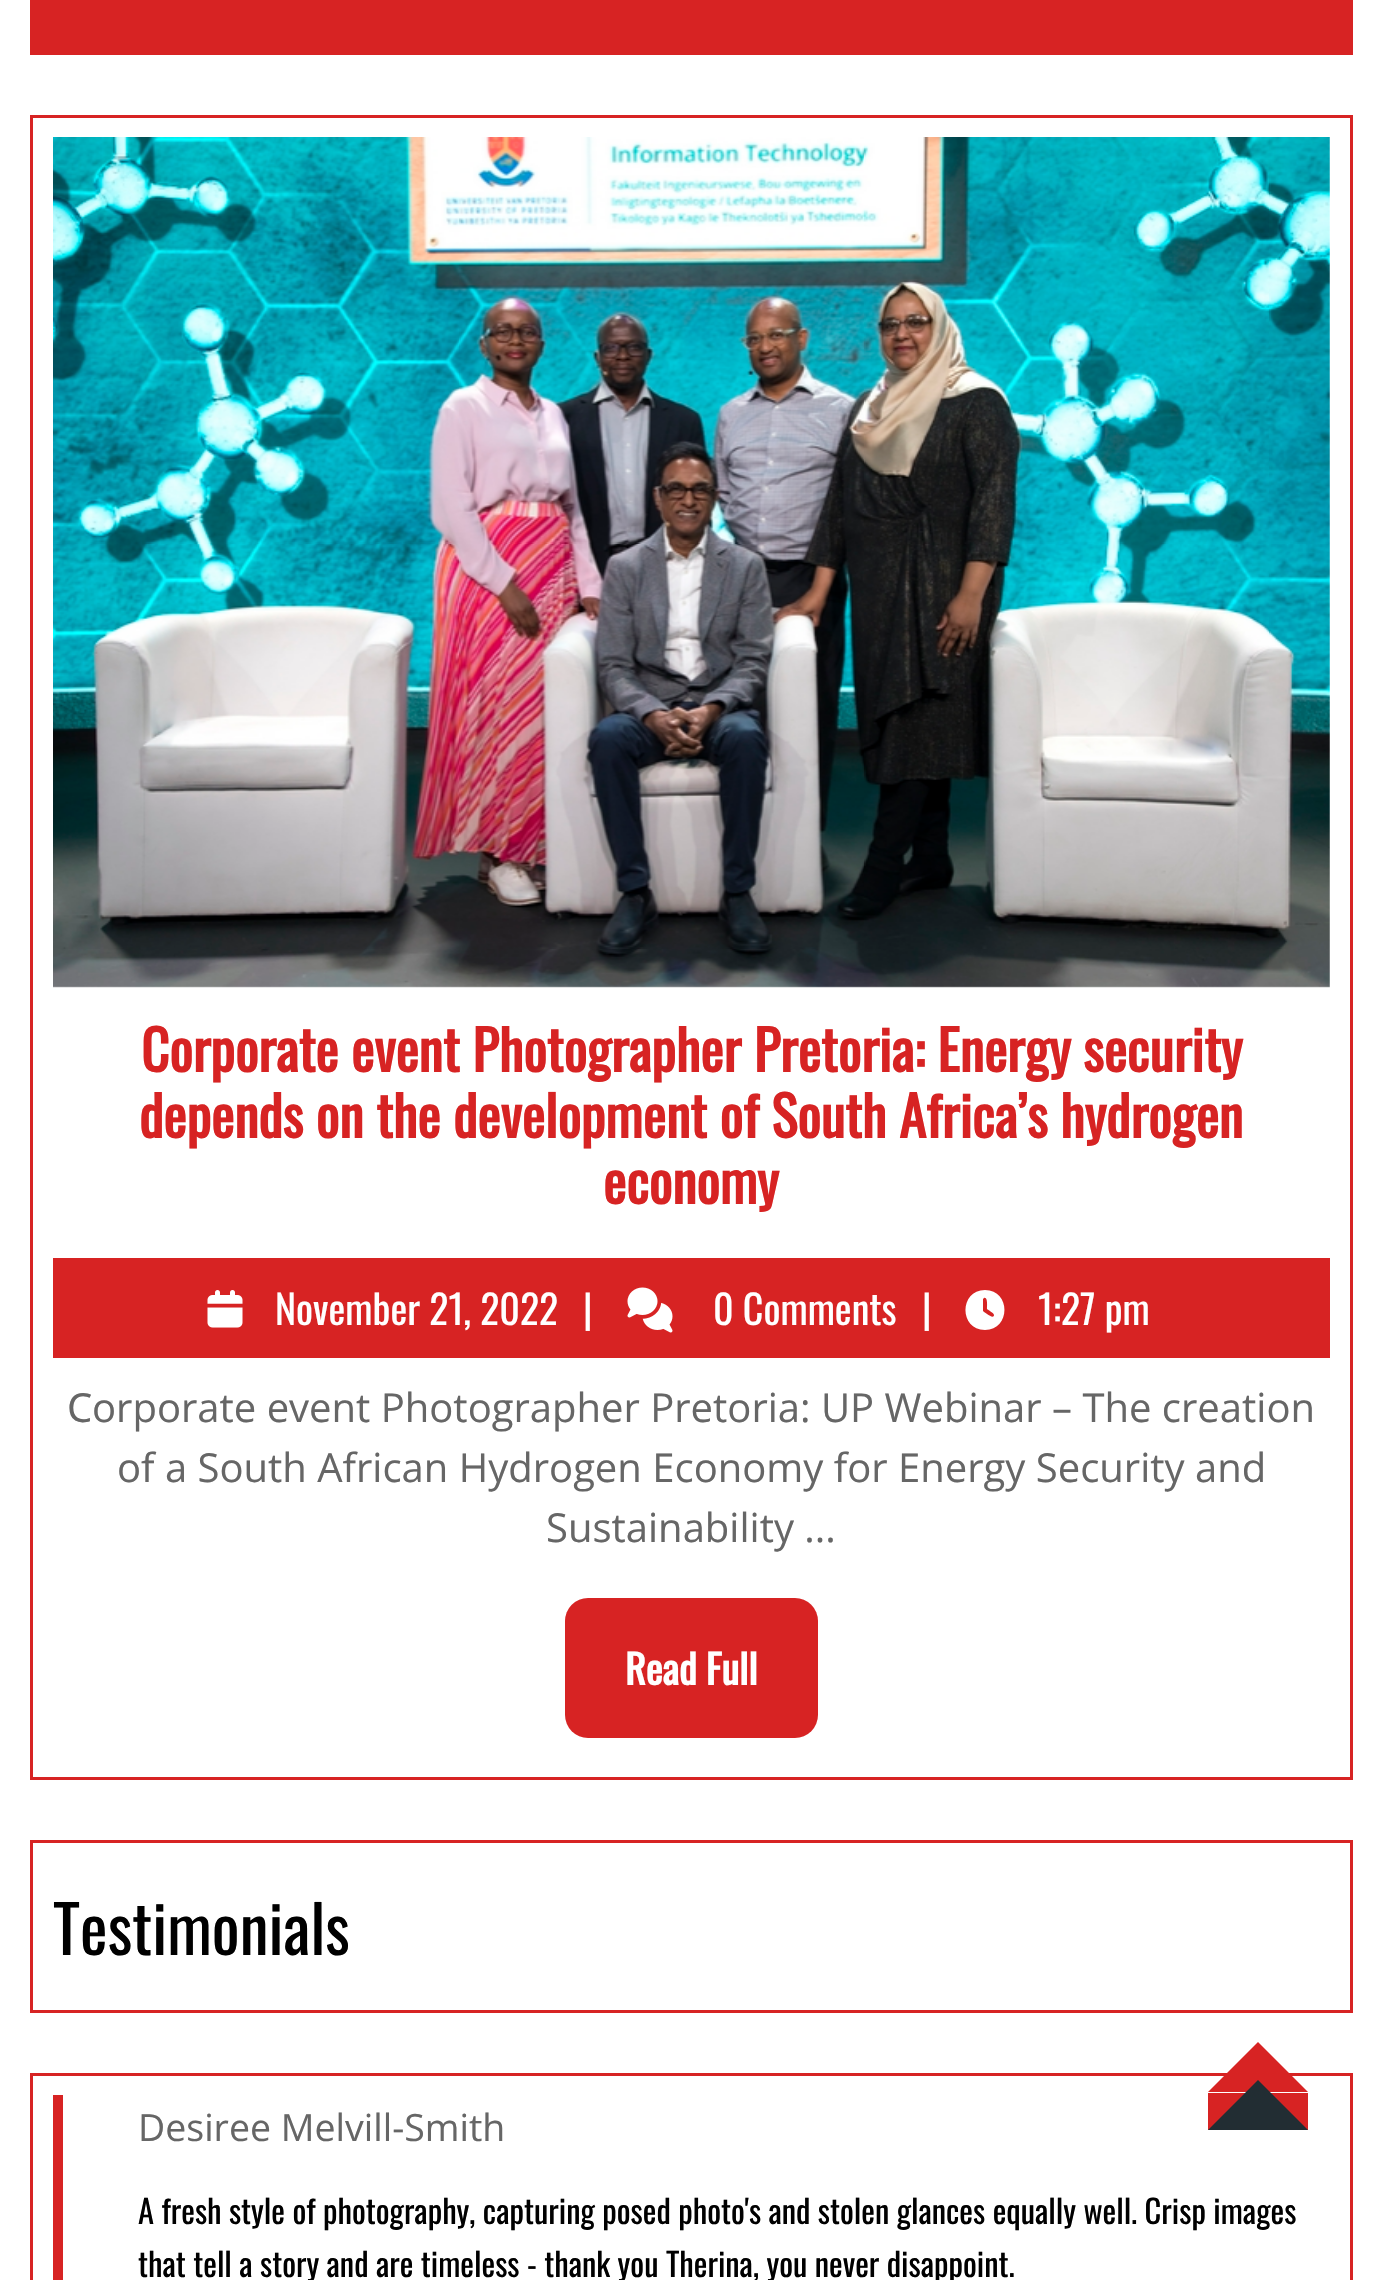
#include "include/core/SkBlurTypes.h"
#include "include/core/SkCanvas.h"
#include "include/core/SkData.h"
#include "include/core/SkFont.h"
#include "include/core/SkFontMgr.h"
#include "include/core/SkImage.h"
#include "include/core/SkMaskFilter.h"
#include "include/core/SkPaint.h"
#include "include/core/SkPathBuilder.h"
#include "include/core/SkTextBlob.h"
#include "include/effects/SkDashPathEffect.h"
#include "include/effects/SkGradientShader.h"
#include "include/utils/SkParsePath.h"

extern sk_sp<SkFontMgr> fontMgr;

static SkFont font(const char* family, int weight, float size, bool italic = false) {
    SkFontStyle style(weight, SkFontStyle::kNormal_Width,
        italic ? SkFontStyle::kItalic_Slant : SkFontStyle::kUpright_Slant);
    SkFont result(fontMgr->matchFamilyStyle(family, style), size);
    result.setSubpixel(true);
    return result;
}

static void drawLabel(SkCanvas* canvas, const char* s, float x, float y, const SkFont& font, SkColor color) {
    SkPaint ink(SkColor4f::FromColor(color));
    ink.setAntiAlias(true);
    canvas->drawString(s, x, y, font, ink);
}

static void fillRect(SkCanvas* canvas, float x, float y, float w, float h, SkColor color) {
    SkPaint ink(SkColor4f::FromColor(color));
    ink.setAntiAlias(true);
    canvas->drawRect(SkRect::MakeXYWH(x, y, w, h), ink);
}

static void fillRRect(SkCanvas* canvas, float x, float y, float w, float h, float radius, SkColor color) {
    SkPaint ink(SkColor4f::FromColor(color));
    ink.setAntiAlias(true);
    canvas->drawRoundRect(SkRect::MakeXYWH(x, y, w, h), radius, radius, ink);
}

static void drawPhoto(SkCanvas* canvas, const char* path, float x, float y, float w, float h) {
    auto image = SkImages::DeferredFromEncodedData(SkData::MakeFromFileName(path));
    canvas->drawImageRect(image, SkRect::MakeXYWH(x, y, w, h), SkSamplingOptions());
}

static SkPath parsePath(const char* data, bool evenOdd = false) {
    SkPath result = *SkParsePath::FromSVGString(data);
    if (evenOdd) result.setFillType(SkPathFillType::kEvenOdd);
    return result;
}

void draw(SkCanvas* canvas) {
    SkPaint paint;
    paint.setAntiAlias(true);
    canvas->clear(0xFFFFFFFF);
    fillRect(canvas, 30, 0, 1323, 55, 0xFFD72323);
    paint.setStroke(true);
    paint.setStrokeWidth(3);
    paint.setColor(0xFFD72323);
    canvas->drawRect(SkRect::MakeXYWH(31.5f, 116.5f, 1320, 1662), paint);
    drawPhoto(canvas, "assets/img1.png", 53, 137, 1277, 851);
    SkFont font1 = font("Oswald", 700, 55);
    drawLabel(canvas, "Corporate event Photographer Pretoria: Energy security", 141, 1072, font1, 0xFFD72323);
    drawLabel(canvas, "depends on the development of South Africa’s hydrogen", 139, 1138, font1, 0xFFD72323);
    drawLabel(canvas, "economy", 603, 1204, font1, 0xFFD72323);
    fillRect(canvas, 53, 1258, 1277, 100, 0xFFD72323);
    drawPhoto(canvas, "assets/img2.png", 207, 1290, 36, 38);
    SkFont font2 = font("Oswald", 400, 40);
    drawLabel(canvas, "November 21, 2022", 275, 1325, font2, 0xFFFFFFFF);
    drawLabel(canvas, "|", 583, 1325, font2, 0xFFFFFFFF);
    drawPhoto(canvas, "assets/img3.png", 627, 1287, 46, 46);
    drawLabel(canvas, "0 Comments", 713, 1325, font2, 0xFFFFFFFF);
    drawLabel(canvas, "|", 922, 1325, font2, 0xFFFFFFFF);
    paint.setStroke(false);
    paint.setColor(0xFFFFFFFF);
    canvas->drawPath(parsePath("M985 1290C1011 1290 1011 1330 985 1330C959 1330 959 1290 985 1290ZM983 1299V1311C984 1312 994 1320 994 1315C994 1313 988 1310 987 1309C987 1307 988 1296 984 1298Z"), paint);
    drawLabel(canvas, "1:27 pm", 1038, 1325, font2, 0xFFFFFFFF);
    SkFont font3 = font("Noto Sans", 400, 40);
    drawLabel(canvas, "C", 67, 1422, font3, 0xFF666666);
    SkFont font4 = font("Open Sans", 400, 40);
    drawLabel(canvas, "orporate event Photographer Pretoria: UP Webinar – The creation", 92, 1422, font4, 0xFF666666);
    drawLabel(canvas, "of a South African Hydrogen Economy for Energy Security and", 117, 1482, font4, 0xFF666666);
    drawLabel(canvas, "Sustainability ...", 546, 1542, font4, 0xFF666666);
    fillRRect(canvas, 565, 1598, 253, 140, 23, 0xFFD72323);
    SkFont font5 = font("Oswald", 700, 40);
    drawLabel(canvas, "Read Full", 625, 1685, font5, 0xFFFFFFFF);
    paint.setStroke(true);
    paint.setColor(0xFFD72323);
    canvas->drawRect(SkRect::MakeXYWH(31.5f, 1841.5f, 1320, 170), paint);
    SkFont font6 = font("Oswald", 400, 65.5f);
    drawLabel(canvas, "Testimonials", 53, 1955, font6, 0xFF000000);
    canvas->drawRect(SkRect::MakeXYWH(31.5f, 2074.5f, 1320, 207), paint);
    fillRect(canvas, 53, 2095, 10, 185, 0xFFD72323);
    SkFont font7 = font("Open Sans", 400, 37.5f);
    drawLabel(canvas, "Desiree Melvill-Smith", 138, 2141, font7, 0xFF666666);
    SkFont font8 = font("Oswald", 400, 32.5f);
    drawLabel(canvas, "A fresh style of photography, capturing posed photo's and stolen glances equally well. Crisp images", 138, 2224, font8, 0xFF000000);
    drawLabel(canvas, "that tell a story and are timeless - thank you Therina, you never disappoint.", 138, 2277, font8, 0xFF000000);
    fillRect(canvas, 1208, 2093, 100, 37, 0xFFD72323);
    paint.setStroke(false);
    canvas->drawPath(parsePath("M1308 2092H1208L1258 2042Z"), paint);
    paint.setColor(0xFF222D33);
    canvas->drawPath(parsePath("M1308 2130H1208L1258 2080Z"), paint);
}
